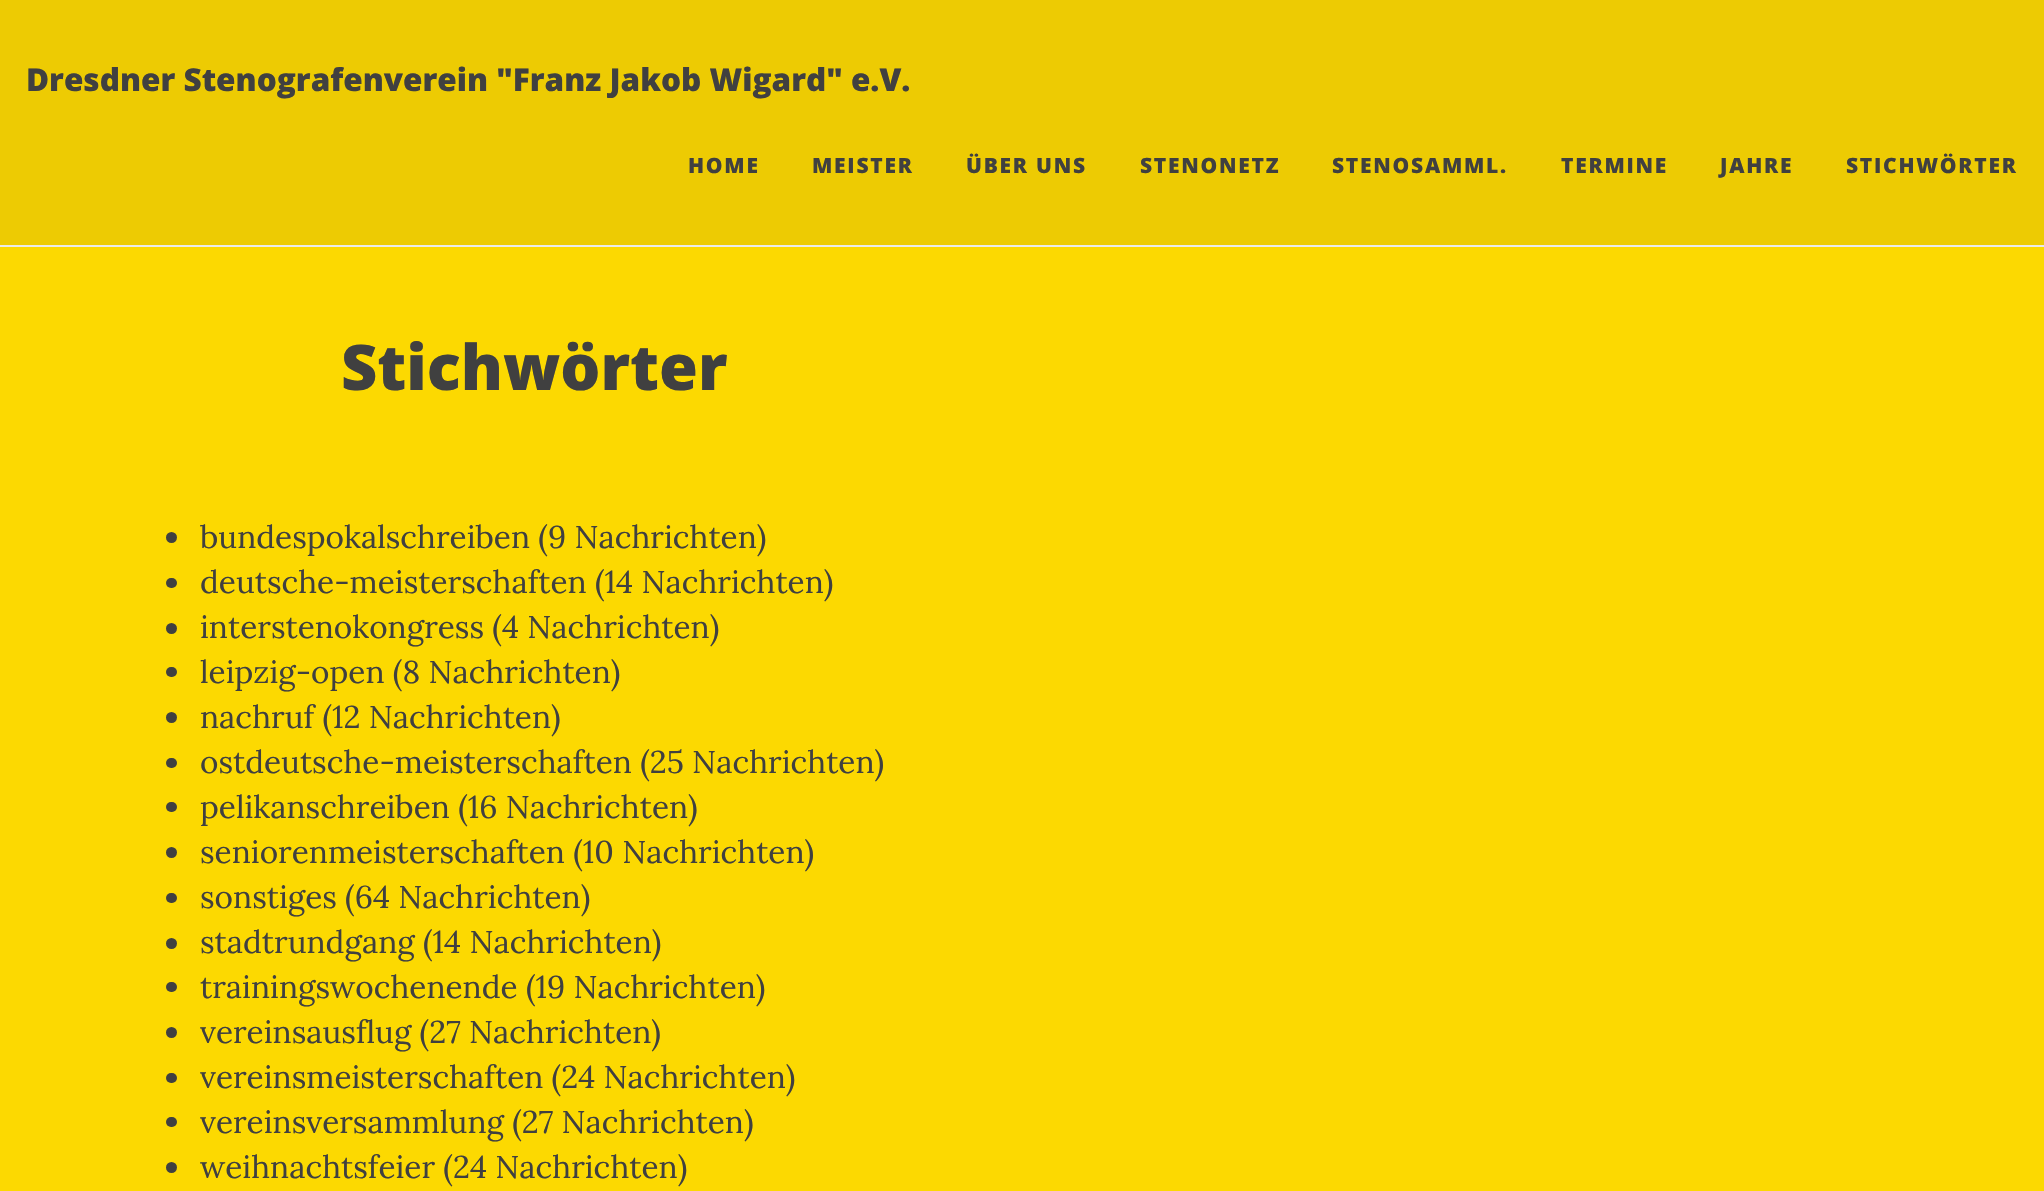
#include "include/core/SkBlurTypes.h"
#include "include/core/SkCanvas.h"
#include "include/core/SkData.h"
#include "include/core/SkFont.h"
#include "include/core/SkFontMgr.h"
#include "include/core/SkImage.h"
#include "include/core/SkMaskFilter.h"
#include "include/core/SkPaint.h"
#include "include/core/SkPathBuilder.h"
#include "include/core/SkTextBlob.h"
#include "include/effects/SkDashPathEffect.h"
#include "include/effects/SkGradientShader.h"
#include "include/utils/SkParsePath.h"

extern sk_sp<SkFontMgr> fontMgr;

static SkFont font(const char* family, int weight, float size, bool italic = false) {
    SkFontStyle style(weight, SkFontStyle::kNormal_Width,
        italic ? SkFontStyle::kItalic_Slant : SkFontStyle::kUpright_Slant);
    SkFont result(fontMgr->matchFamilyStyle(family, style), size);
    result.setSubpixel(true);
    return result;
}

static void drawLabel(SkCanvas* canvas, const char* s, float x, float y, const SkFont& font, SkColor color) {
    SkPaint ink(SkColor4f::FromColor(color));
    ink.setAntiAlias(true);
    canvas->drawString(s, x, y, font, ink);
}

static void drawTracked(SkCanvas* canvas, const char* s, float x, float y, const SkFont& font, const SkPaint& ink, float letter, float word) {
    std::vector<SkGlyphID> glyphs(font.countText(s, strlen(s), SkTextEncoding::kUTF8));
    std::vector<float> xs(glyphs.size());
    font.textToGlyphs(s, strlen(s), SkTextEncoding::kUTF8, glyphs);
    font.getXPos(glyphs, xs, x);
    float extra = 0;
    for (size_t i = 0; i < glyphs.size(); i++) {
        xs[i] += extra;
        extra += letter + word * (glyphs[i] == font.unicharToGlyph(' '));
    }
    canvas->drawTextBlob(SkTextBlob::MakeFromPosHGlyphs(glyphs, xs, y, font), 0, 0, ink);
}

static void fillRect(SkCanvas* canvas, float x, float y, float w, float h, SkColor color) {
    SkPaint ink(SkColor4f::FromColor(color));
    ink.setAntiAlias(true);
    canvas->drawRect(SkRect::MakeXYWH(x, y, w, h), ink);
}

static void fillRRect(SkCanvas* canvas, float x, float y, float w, float h, float radius, SkColor color) {
    SkPaint ink(SkColor4f::FromColor(color));
    ink.setAntiAlias(true);
    canvas->drawRoundRect(SkRect::MakeXYWH(x, y, w, h), radius, radius, ink);
}

void draw(SkCanvas* canvas) {
    SkPaint paint;
    paint.setAntiAlias(true);
    canvas->clear(0xFFFCD901);
    fillRect(canvas, 0, 0, 2044, 245, 0xFFEDCB03);
    fillRect(canvas, 0, 245, 2044, 2, 0xFFEAEAEA);
    SkFont font1 = font("Open Sans", 800, 31.5f);
    drawLabel(canvas, "Dresdner Stenografenverein \"Franz Jakob Wigard\" e.V.", 26, 91, font1, 0xFF404040);
    SkFont font2 = font("Open Sans", 800, 21);
    paint.setColor(0xFF404040);
    drawTracked(canvas, "HOME", 688, 173, font2, paint, 1.75f, 0);
    drawTracked(canvas, "MEISTER", 812, 173, font2, paint, 1.75f, 0);
    drawTracked(canvas, "ÜBER UNS", 966, 173, font2, paint, 1.75f, 0);
    drawTracked(canvas, "STENONETZ", 1140, 173, font2, paint, 1.75f, 0);
    drawTracked(canvas, "STENOSAMML.", 1332, 173, font2, paint, 1.75f, 0);
    drawTracked(canvas, "TERMINE", 1561, 173, font2, paint, 1.75f, 0);
    drawTracked(canvas, "JAHRE", 1720, 173, font2, paint, 1.75f, 0);
    drawTracked(canvas, "STICHWÖRTER", 1846, 173, font2, paint, 1.75f, 0);
    SkFont font3 = font("Open Sans", 800, 63);
    drawLabel(canvas, "Stichwörter", 341, 390, font3, 0xFF404040);
    canvas->drawCircle(171.5f, 537.5f, 5.5f, paint);
    SkFont font4 = font("Lora", 400, 31.5f);
    drawLabel(canvas, "bundespokalschreiben (9 Nachrichten)", 200, 548, font4, 0xFF404040);
    fillRRect(canvas, 166, 578, 11, 10, 5, 0xFF404040);
    drawLabel(canvas, "deutsche-meisterschaften (14 Nachrichten)", 200, 593, font4, 0xFF404040);
    canvas->drawCircle(171.5f, 628.5f, 5.5f, paint);
    drawLabel(canvas, "interstenokongress (4 Nachrichten)", 200, 638, font4, 0xFF404040);
    fillRRect(canvas, 166, 667, 11, 10, 5, 0xFF404040);
    drawLabel(canvas, "leipzig-open (8 Nachrichten)", 200, 683, font4, 0xFF404040);
    canvas->drawCircle(171.5f, 717.5f, 5.5f, paint);
    drawLabel(canvas, "nachruf (12 Nachrichten)", 200, 728, font4, 0xFF404040);
    fillRRect(canvas, 166, 758, 11, 10, 5, 0xFF404040);
    drawLabel(canvas, "ostdeutsche-meisterschaften (25 Nachrichten)", 200, 773, font4, 0xFF404040);
    fillRRect(canvas, 166, 802, 11, 10, 5, 0xFF404040);
    drawLabel(canvas, "pelikanschreiben (16 Nachrichten)", 200, 818, font4, 0xFF404040);
    canvas->drawCircle(171.5f, 852.5f, 5.5f, paint);
    drawLabel(canvas, "seniorenmeisterschaften (10 Nachrichten)", 200, 863, font4, 0xFF404040);
    fillRRect(canvas, 166, 893, 11, 10, 5, 0xFF404040);
    drawLabel(canvas, "sonstiges (64 Nachrichten)", 200, 908, font4, 0xFF404040);
    canvas->drawCircle(171.5f, 943.5f, 5.5f, paint);
    drawLabel(canvas, "stadtrundgang (14 Nachrichten)", 200, 953, font4, 0xFF404040);
    fillRRect(canvas, 166, 982, 11, 10, 5, 0xFF404040);
    drawLabel(canvas, "trainingswochenende (19 Nachrichten)", 200, 998, font4, 0xFF404040);
    canvas->drawCircle(171.5f, 1032.5f, 5.5f, paint);
    drawLabel(canvas, "vereinsausflug (27 Nachrichten)", 200, 1043, font4, 0xFF404040);
    fillRRect(canvas, 166, 1073, 11, 10, 5, 0xFF404040);
    drawLabel(canvas, "vereinsmeisterschaften (24 Nachrichten)", 200, 1088, font4, 0xFF404040);
    fillRRect(canvas, 166, 1117, 11, 10, 5, 0xFF404040);
    drawLabel(canvas, "vereinsversammlung (27 Nachrichten)", 200, 1133, font4, 0xFF404040);
    canvas->drawCircle(171.5f, 1167.5f, 5.5f, paint);
    drawLabel(canvas, "weihnachtsfeier (24 Nachrichten)", 200, 1178, font4, 0xFF404040);
}
